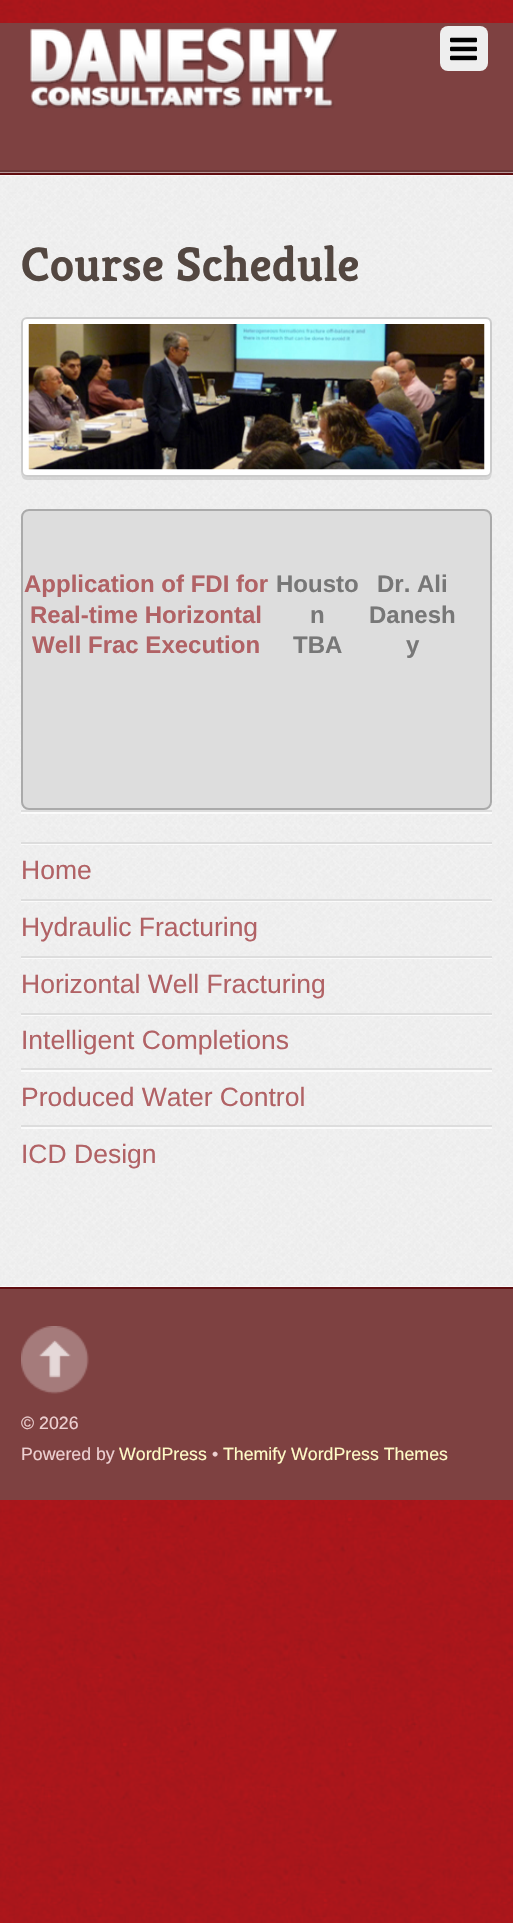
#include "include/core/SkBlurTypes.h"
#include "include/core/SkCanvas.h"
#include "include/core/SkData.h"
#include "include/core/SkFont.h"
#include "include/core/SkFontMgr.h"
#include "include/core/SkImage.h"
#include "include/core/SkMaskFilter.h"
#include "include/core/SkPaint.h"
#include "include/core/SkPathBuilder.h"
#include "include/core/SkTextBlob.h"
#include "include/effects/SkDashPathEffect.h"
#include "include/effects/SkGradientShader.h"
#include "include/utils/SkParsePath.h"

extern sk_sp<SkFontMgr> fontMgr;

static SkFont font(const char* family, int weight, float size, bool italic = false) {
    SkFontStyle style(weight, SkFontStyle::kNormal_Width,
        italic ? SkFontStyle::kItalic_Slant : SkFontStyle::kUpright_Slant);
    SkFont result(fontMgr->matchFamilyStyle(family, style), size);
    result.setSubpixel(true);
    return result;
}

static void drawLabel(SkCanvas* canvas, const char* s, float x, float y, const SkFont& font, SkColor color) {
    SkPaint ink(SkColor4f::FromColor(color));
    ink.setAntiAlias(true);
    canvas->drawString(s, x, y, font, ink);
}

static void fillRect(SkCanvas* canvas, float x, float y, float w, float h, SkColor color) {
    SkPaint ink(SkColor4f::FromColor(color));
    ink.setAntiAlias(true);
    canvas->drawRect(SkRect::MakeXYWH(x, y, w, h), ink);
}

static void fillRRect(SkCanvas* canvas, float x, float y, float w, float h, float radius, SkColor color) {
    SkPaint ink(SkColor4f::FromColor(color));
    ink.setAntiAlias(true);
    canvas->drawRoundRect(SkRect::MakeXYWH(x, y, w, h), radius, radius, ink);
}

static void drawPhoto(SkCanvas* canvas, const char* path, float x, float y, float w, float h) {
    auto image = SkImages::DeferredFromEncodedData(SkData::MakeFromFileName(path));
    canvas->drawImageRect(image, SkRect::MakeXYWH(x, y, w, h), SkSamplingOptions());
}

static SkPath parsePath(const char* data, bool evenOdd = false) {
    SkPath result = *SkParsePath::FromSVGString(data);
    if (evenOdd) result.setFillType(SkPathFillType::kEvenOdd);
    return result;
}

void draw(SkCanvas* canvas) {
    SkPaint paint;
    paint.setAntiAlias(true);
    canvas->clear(0xFFFFFFFF);
    drawPhoto(canvas, "assets/img1.png", 0, 0, 513, 1923);
    fillRect(canvas, 0, 23, 513, 150, 0xFF7E4141);
    drawPhoto(canvas, "assets/img2.png", 30, 27, 309, 82);
    fillRRect(canvas, 440, 26, 48, 45, 8, 0xFFEEEEEE);
    drawPhoto(canvas, "assets/img3.png", 450, 37, 27, 24);
    fillRect(canvas, 0, 170, 513, 2, 0xFF6B3737);
    drawPhoto(canvas, "assets/img4.png", 0, 172, 513, 1115);
    fillRect(canvas, 0, 175, 513, 1, 0x99FFFFFF);
    fillRect(canvas, 0, 1286, 513, 1, 0x99FFFFFF);
    fillRect(canvas, 0, 173, 513, 2, 0xFF5F0C0F);
    fillRect(canvas, 0, 1287, 513, 2, 0xFF5F0C0F);
    SkFont font1 = font("Kreon", 300, 49);
    drawLabel(canvas, "Course Schedule", 21, 281, font1, 0xFF534741);
    paint.setColor(0x1A000000);
    canvas->drawPath(parsePath("M21 471C21 475 22 480 27 480H486C491 480 492 475 492 471C492 474 489 477 486 477H27C24 477 21 474 21 471Z"), paint);
    paint.setColor(0xFFFFFFFF);
    canvas->drawRoundRect(SkRect::MakeXYWH(22, 318, 469, 158), 5, 5, paint);
    paint.setStroke(true);
    paint.setStrokeWidth(2);
    paint.setColor(0xFFCCCCCC);
    canvas->drawRoundRect(SkRect::MakeXYWH(22, 318, 469, 158), 5, 5, paint);
    drawPhoto(canvas, "assets/img5.png", 28, 324, 457, 146);
    paint.setStroke(false);
    paint.setColor(0xFFDDDDDD);
    canvas->drawRoundRect(SkRect::MakeXYWH(22, 510, 469, 299), 7, 7, paint);
    paint.setStroke(true);
    paint.setColor(0xFFAAAAAA);
    canvas->drawRoundRect(SkRect::MakeXYWH(22, 510, 469, 299), 7, 7, paint);
    SkFont font2 = font("Liberation Sans", 700, 24);
    drawLabel(canvas, "Application of FDI for", 24, 592, font2, 0xFFB16265);
    drawLabel(canvas, "Real-time Horizontal", 30, 623, font2, 0xFFB16265);
    drawLabel(canvas, "Well Frac Execution", 32, 653, font2, 0xFFB16265);
    drawLabel(canvas, "Housto", 276, 592, font2, 0xFF777777);
    drawLabel(canvas, "n", 310, 623, font2, 0xFF777777);
    drawLabel(canvas, "TBA", 293, 653, font2, 0xFF777777);
    drawLabel(canvas, "Dr. Ali", 377, 592, font2, 0xFF777777);
    drawLabel(canvas, "Danesh", 369, 623, font2, 0xFF777777);
    drawLabel(canvas, "y", 406, 653, font2, 0xFF777777);
    fillRect(canvas, 21, 812, 471, 2, 0xB3FFFFFF);
    fillRect(canvas, 21, 810, 471, 2, 0xFFDDDDDD);
    fillRect(canvas, 21, 844, 471, 1, 0xB3FFFFFF);
    fillRect(canvas, 21, 842, 471, 2, 0xFFDDDDDD);
    SkFont font3 = font("Liberation Sans", 400, 26.5f);
    drawLabel(canvas, "Home", 21, 879, font3, 0xFFB16265);
    fillRect(canvas, 21, 901, 471, 1, 0xB3FFFFFF);
    fillRect(canvas, 21, 899, 471, 2, 0xFFDDDDDD);
    drawLabel(canvas, "Hydraulic Fracturing", 21, 936, font3, 0xFFB16265);
    fillRect(canvas, 21, 958, 471, 1, 0xB3FFFFFF);
    fillRect(canvas, 21, 956, 471, 2, 0xFFDDDDDD);
    drawLabel(canvas, "Horizontal Well Fracturing", 21, 993, font3, 0xFFB16265);
    fillRect(canvas, 21, 1015, 471, 1, 0xB3FFFFFF);
    fillRect(canvas, 21, 1013, 471, 2, 0xFFDDDDDD);
    drawLabel(canvas, "Intelligent Completions", 21, 1049, font3, 0xFFB16265);
    fillRect(canvas, 21, 1070, 471, 2, 0xB3FFFFFF);
    fillRect(canvas, 21, 1068, 471, 2, 0xFFDDDDDD);
    drawLabel(canvas, "Produced Water Control", 21, 1106, font3, 0xFFB16265);
    fillRect(canvas, 21, 1127, 471, 2, 0xB3FFFFFF);
    fillRect(canvas, 21, 1125, 471, 2, 0xFFDDDDDD);
    drawLabel(canvas, "ICD Design", 21, 1163, font3, 0xFFB16265);
    fillRect(canvas, 0, 1289, 513, 211, 0xFF7E4141);
    drawPhoto(canvas, "assets/img6.png", 21, 1326, 68, 68);
    SkFont font4 = font("Liberation Sans", 400, 17.75f);
    drawLabel(canvas, "© 2026", 21, 1429, font4, 0xFFEDD0D1);
    drawLabel(canvas, "Powered by", 21, 1460, font4, 0xFFEDD0D1);
    drawLabel(canvas, "WordPress", 119, 1460, font4, 0xFFFFFBC7);
    drawLabel(canvas, "•", 212, 1460, font4, 0xFFEDD0D1);
    drawLabel(canvas, "Themify WordPress Themes", 223, 1460, font4, 0xFFFFFBC7);
}
